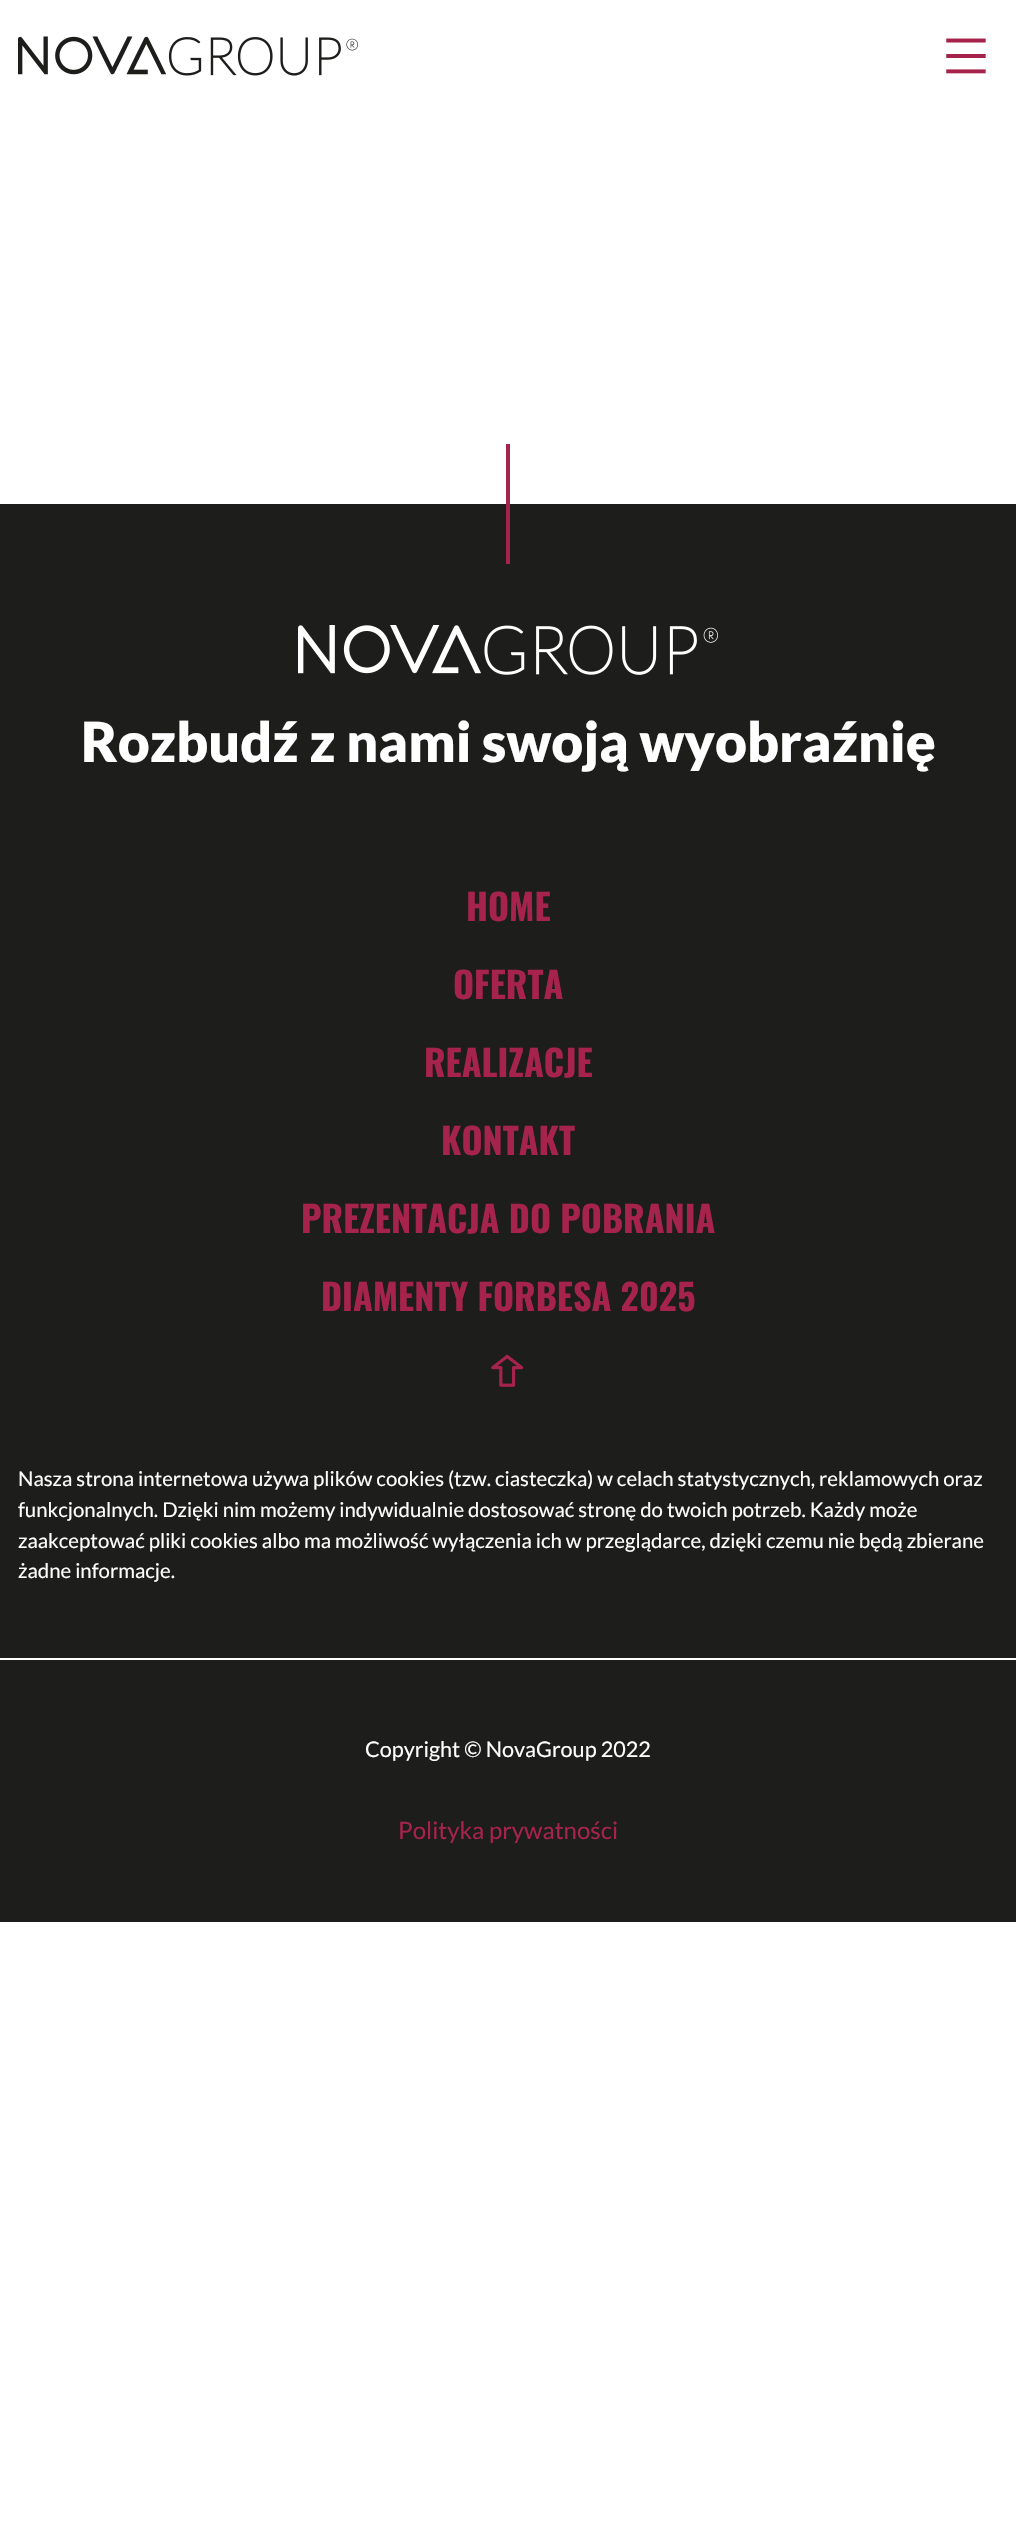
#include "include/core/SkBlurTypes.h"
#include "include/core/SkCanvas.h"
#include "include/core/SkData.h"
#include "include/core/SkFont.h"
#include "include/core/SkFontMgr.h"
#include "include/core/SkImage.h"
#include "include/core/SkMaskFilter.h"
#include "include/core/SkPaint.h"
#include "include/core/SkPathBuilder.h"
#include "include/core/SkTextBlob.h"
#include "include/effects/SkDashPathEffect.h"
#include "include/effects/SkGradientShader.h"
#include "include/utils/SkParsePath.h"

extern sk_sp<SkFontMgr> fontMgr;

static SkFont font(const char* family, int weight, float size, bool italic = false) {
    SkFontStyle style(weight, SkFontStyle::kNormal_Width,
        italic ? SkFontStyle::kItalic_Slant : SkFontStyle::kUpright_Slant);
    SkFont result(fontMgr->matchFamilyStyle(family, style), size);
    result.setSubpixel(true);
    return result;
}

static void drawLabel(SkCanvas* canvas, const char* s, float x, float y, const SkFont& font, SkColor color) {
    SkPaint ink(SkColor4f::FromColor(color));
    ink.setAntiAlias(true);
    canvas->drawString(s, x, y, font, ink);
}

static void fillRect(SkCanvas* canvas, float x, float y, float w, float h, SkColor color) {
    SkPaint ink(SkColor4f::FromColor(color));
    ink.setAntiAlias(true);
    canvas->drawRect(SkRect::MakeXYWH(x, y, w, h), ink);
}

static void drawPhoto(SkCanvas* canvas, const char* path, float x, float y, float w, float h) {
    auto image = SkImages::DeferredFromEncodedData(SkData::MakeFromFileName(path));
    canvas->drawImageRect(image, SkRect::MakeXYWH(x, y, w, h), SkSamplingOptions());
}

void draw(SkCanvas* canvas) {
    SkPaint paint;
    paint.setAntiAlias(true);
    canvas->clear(0xFFFFFFFF);
    drawPhoto(canvas, "assets/img1.png", 18, 36, 340, 40);
    drawPhoto(canvas, "assets/img2.png", 946, 38, 40, 36);
    fillRect(canvas, 0, 504, 1016, 1154, 0xFF1D1D1B);
    fillRect(canvas, 506, 444, 4, 120, 0xFFA6234B);
    drawPhoto(canvas, "assets/img3.png", 298, 625, 420, 50);
    SkFont font1 = font("Lato", 900, 55.25f);
    drawLabel(canvas, "Rozbudź z nami swoją wyobraźnię", 81, 762, font1, 0xFFFFFFFF);
    SkFont font2 = font("Oswald", 700, 36);
    drawLabel(canvas, "HOME", 466, 921, font2, 0xFFA6234B);
    drawLabel(canvas, "OFERTA", 453, 999, font2, 0xFFA6234B);
    drawLabel(canvas, "REALIZACJE", 424, 1077, font2, 0xFFA6234B);
    drawLabel(canvas, "KONTAKT", 441, 1155, font2, 0xFFA6234B);
    drawLabel(canvas, "PREZENTACJA DO POBRANIA", 301, 1233, font2, 0xFFA6234B);
    drawLabel(canvas, "DIAMENTY FORBESA 2025", 321, 1311, font2, 0xFFA6234B);
    drawPhoto(canvas, "assets/img4.png", 491, 1354, 33, 33);
    SkFont font3 = font("Lato", 400, 20.4f);
    drawLabel(canvas, "Nasza strona internetowa używa plików cookies (tzw. ciasteczka) w celach statystycznych, reklamowych oraz", 18, 1486, font3, 0xFFFFFFFF);
    drawLabel(canvas, "funkcjonalnych. Dzięki nim możemy indywidualnie dostosować stronę do twoich potrzeb. Każdy może", 18, 1517, font3, 0xFFFFFFFF);
    drawLabel(canvas, "zaakceptować pliki cookies albo ma możliwość wyłączenia ich w przeglądarce, dzięki czemu nie będą zbierane", 18, 1548, font3, 0xFFFFFFFF);
    drawLabel(canvas, "żadne informacje.", 18, 1578, font3, 0xFFFFFFFF);
    fillRect(canvas, 0, 1660, 1016, 262, 0xFF1D1D1B);
    SkFont font4 = font("Lato", 400, 21.6f);
    drawLabel(canvas, "Copyright © NovaGroup 2022", 365, 1757, font4, 0xFFFFFFFF);
    SkFont font5 = font("Lato", 400, 24);
    drawLabel(canvas, "Polityka prywatności", 398, 1839, font5, 0xFFA6234B);
}
